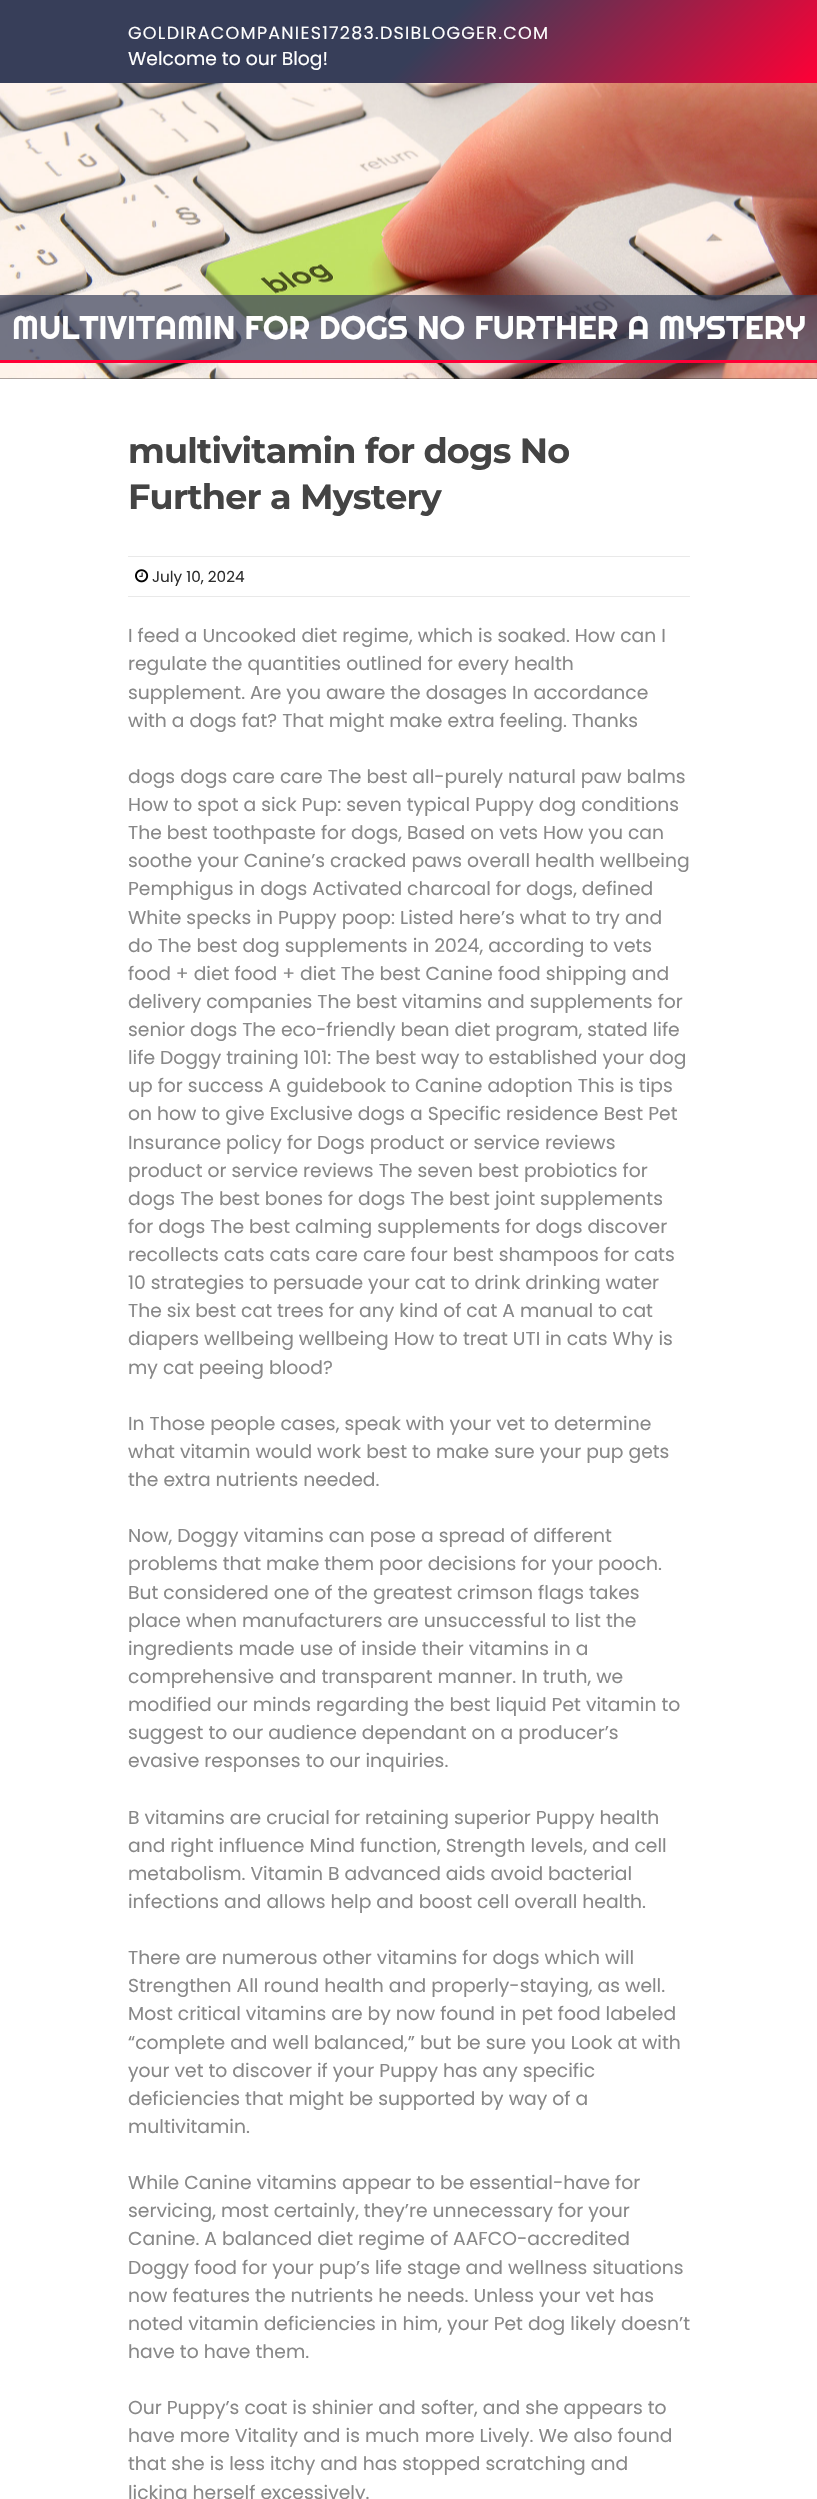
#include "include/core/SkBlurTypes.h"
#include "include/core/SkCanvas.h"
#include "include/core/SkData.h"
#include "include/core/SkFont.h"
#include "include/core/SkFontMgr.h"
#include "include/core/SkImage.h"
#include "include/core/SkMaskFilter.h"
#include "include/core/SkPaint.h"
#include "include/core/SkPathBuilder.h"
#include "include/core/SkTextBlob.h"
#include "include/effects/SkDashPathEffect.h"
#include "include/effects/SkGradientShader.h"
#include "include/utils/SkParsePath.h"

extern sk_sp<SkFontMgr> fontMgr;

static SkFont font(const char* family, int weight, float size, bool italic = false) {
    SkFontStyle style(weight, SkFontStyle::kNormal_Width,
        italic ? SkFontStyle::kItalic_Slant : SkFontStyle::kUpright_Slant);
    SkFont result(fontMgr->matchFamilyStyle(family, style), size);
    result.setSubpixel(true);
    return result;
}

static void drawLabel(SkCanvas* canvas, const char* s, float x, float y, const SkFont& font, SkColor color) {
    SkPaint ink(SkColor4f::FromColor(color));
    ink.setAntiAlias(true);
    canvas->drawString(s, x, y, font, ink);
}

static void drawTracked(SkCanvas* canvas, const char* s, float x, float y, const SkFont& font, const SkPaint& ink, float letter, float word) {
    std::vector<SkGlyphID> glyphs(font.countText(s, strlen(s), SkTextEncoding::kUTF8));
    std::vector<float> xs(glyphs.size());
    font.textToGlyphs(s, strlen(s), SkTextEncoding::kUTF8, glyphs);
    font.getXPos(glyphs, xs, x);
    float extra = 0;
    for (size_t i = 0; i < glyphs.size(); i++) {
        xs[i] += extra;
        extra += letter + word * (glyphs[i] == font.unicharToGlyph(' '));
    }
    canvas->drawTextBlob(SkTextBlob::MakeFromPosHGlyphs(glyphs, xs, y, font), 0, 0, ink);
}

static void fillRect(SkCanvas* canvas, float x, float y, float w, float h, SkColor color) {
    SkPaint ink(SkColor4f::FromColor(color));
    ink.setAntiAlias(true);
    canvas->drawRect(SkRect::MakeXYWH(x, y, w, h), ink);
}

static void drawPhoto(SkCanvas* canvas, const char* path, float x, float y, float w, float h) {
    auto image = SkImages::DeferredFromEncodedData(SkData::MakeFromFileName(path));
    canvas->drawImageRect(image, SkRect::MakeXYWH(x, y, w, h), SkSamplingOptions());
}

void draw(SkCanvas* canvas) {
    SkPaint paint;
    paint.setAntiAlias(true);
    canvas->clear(0xFFFFFFFF);
    {
        const SkColor colors[] = {0xFF373E59, 0xFFFF0036};
        const float stops[] = {0.52f, 1};
        const SkPoint ends[] = {{184, -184}, {634, 266}};
        paint.setShader(SkGradientShader::MakeLinear(ends, colors, stops, 2, SkTileMode::kClamp));
        paint.setAlpha(255);
    }
    canvas->drawRect(SkRect::MakeXYWH(0, 0, 817, 83), paint);
    SkFont font1 = font("Poppins", 400, 17.5f);
    paint.setShader(nullptr);
    paint.setColor(0xFFFFFFFF);
    drawTracked(canvas, "GOLDIRACOMPANIES17283.DSIBLOGGER.COM", 128, 39, font1, paint, 1.25f, 0);
    SkFont font2 = font("Poppins", 400, 18.75f);
    drawLabel(canvas, "Welcome to our Blog!", 128, 65, font2, 0xFFFFFFFF);
    fillRect(canvas, 0, 378, 817, 1, 0xFF292121);
    drawPhoto(canvas, "assets/img1.png", 0, 83, 817, 296);
    fillRect(canvas, 0, 295, 817, 65, 0xB3373E59);
    fillRect(canvas, 0, 360, 817, 3, 0xFFFF0036);
    SkFont font3 = font("Righteous", 400, 32.8f);
    drawLabel(canvas, "MULTIVITAMIN FOR DOGS NO FURTHER A MYSTERY", 12, 339, font3, 0xFFFFFFFF);
    SkFont font4 = font("Montserrat", 700, 35);
    paint.setColor(0xFF444444);
    drawTracked(canvas, "multivitamin for dogs No", 128, 463, font4, paint, -0.75f, 0);
    drawTracked(canvas, "Further a Mystery", 128, 509, font4, paint, -0.75f, 0);
    fillRect(canvas, 128, 556, 562, 1, 0xFFE9E9E9);
    fillRect(canvas, 128, 596, 562, 1, 0xFFE9E9E9);
    drawPhoto(canvas, "assets/img2.png", 135, 569, 14, 14);
    SkFont font5 = font("Poppins", 400, 15.25f);
    drawLabel(canvas, "July 10, 2024", 152, 582, font5, 0xFF2E2E2E);
    drawLabel(canvas, "I feed a Uncooked diet regime, which is soaked. How can I", 128, 642, font2, 0xFF888888);
    drawLabel(canvas, "regulate the quantities outlined for every health", 128, 670, font2, 0xFF888888);
    drawLabel(canvas, "supplement. Are you aware the dosages In accordance", 128, 699, font2, 0xFF888888);
    drawLabel(canvas, "with a dogs fat? That might make extra feeling. Thanks", 128, 727, font2, 0xFF888888);
    drawLabel(canvas, "dogs dogs care care The best all-purely natural paw balms", 128, 783, font2, 0xFF888888);
    drawLabel(canvas, "How to spot a sick Pup: seven typical Puppy dog conditions", 128, 811, font2, 0xFF888888);
    drawLabel(canvas, "The best toothpaste for dogs, Based on vets How you can", 128, 839, font2, 0xFF888888);
    drawLabel(canvas, "soothe your Canine’s cracked paws overall health wellbeing", 128, 867, font2, 0xFF888888);
    drawLabel(canvas, "Pemphigus in dogs Activated charcoal for dogs, defined", 128, 895, font2, 0xFF888888);
    drawLabel(canvas, "White specks in Puppy poop: Listed here’s what to try and", 128, 924, font2, 0xFF888888);
    drawLabel(canvas, "do The best dog supplements in 2024, according to vets", 128, 952, font2, 0xFF888888);
    drawLabel(canvas, "food + diet food + diet The best Canine food shipping and", 128, 980, font2, 0xFF888888);
    drawLabel(canvas, "delivery companies The best vitamins and supplements for", 128, 1008, font2, 0xFF888888);
    drawLabel(canvas, "senior dogs The eco-friendly bean diet program, stated life", 128, 1036, font2, 0xFF888888);
    drawLabel(canvas, "life Doggy training 101: The best way to established your dog", 128, 1064, font2, 0xFF888888);
    drawLabel(canvas, "up for success A guidebook to Canine adoption This is tips", 128, 1092, font2, 0xFF888888);
    drawLabel(canvas, "on how to give Exclusive dogs a Specific residence Best Pet", 128, 1120, font2, 0xFF888888);
    drawLabel(canvas, "Insurance policy for Dogs product or service reviews", 128, 1149, font2, 0xFF888888);
    drawLabel(canvas, "product or service reviews The seven best probiotics for", 128, 1177, font2, 0xFF888888);
    drawLabel(canvas, "dogs The best bones for dogs The best joint supplements", 128, 1205, font2, 0xFF888888);
    drawLabel(canvas, "for dogs The best calming supplements for dogs discover", 128, 1233, font2, 0xFF888888);
    drawLabel(canvas, "recollects cats cats care care four best shampoos for cats", 128, 1261, font2, 0xFF888888);
    drawLabel(canvas, "10 strategies to persuade your cat to drink drinking water", 128, 1289, font2, 0xFF888888);
    drawLabel(canvas, "The six best cat trees for any kind of cat A manual to cat", 128, 1317, font2, 0xFF888888);
    drawLabel(canvas, "diapers wellbeing wellbeing How to treat UTI in cats Why is", 128, 1345, font2, 0xFF888888);
    drawLabel(canvas, "my cat peeing blood?", 128, 1374, font2, 0xFF888888);
    drawLabel(canvas, "In Those people cases, speak with your vet to determine", 128, 1430, font2, 0xFF888888);
    drawLabel(canvas, "what vitamin would work best to make sure your pup gets", 128, 1458, font2, 0xFF888888);
    drawLabel(canvas, "the extra nutrients needed.", 128, 1486, font2, 0xFF888888);
    drawLabel(canvas, "Now, Doggy vitamins can pose a spread of different", 128, 1542, font2, 0xFF888888);
    drawLabel(canvas, "problems that make them poor decisions for your pooch.", 128, 1570, font2, 0xFF888888);
    drawLabel(canvas, "But considered one of the greatest crimson flags takes", 128, 1599, font2, 0xFF888888);
    drawLabel(canvas, "place when manufacturers are unsuccessful to list the", 128, 1627, font2, 0xFF888888);
    drawLabel(canvas, "ingredients made use of inside their vitamins in a", 128, 1655, font2, 0xFF888888);
    drawLabel(canvas, "comprehensive and transparent manner. In truth, we", 128, 1683, font2, 0xFF888888);
    drawLabel(canvas, "modified our minds regarding the best liquid Pet vitamin to", 128, 1711, font2, 0xFF888888);
    drawLabel(canvas, "suggest to our audience dependant on a producer’s", 128, 1739, font2, 0xFF888888);
    drawLabel(canvas, "evasive responses to our inquiries.", 128, 1767, font2, 0xFF888888);
    drawLabel(canvas, "B vitamins are crucial for retaining superior Puppy health", 128, 1824, font2, 0xFF888888);
    drawLabel(canvas, "and right influence Mind function, Strength levels, and cell", 128, 1852, font2, 0xFF888888);
    drawLabel(canvas, "metabolism. Vitamin B advanced aids avoid bacterial", 128, 1880, font2, 0xFF888888);
    drawLabel(canvas, "infections and allows help and boost cell overall health.", 128, 1908, font2, 0xFF888888);
    drawLabel(canvas, "There are numerous other vitamins for dogs which will", 128, 1964, font2, 0xFF888888);
    drawLabel(canvas, "Strengthen All round health and properly-staying, as well.", 128, 1992, font2, 0xFF888888);
    drawLabel(canvas, "Most critical vitamins are by now found in pet food labeled", 128, 2020, font2, 0xFF888888);
    drawLabel(canvas, "“complete and well balanced,” but be sure you Look at with", 128, 2049, font2, 0xFF888888);
    drawLabel(canvas, "your vet to discover if your Puppy has any specific", 128, 2077, font2, 0xFF888888);
    drawLabel(canvas, "deficiencies that might be supported by way of a", 128, 2105, font2, 0xFF888888);
    drawLabel(canvas, "multivitamin.", 128, 2133, font2, 0xFF888888);
    drawLabel(canvas, "While Canine vitamins appear to be essential-have for", 128, 2189, font2, 0xFF888888);
    drawLabel(canvas, "servicing, most certainly, they’re unnecessary for your", 128, 2217, font2, 0xFF888888);
    drawLabel(canvas, "Canine. A balanced diet regime of AAFCO-accredited", 128, 2245, font2, 0xFF888888);
    drawLabel(canvas, "Doggy food for your pup’s life stage and wellness situations", 128, 2274, font2, 0xFF888888);
    drawLabel(canvas, "now features the nutrients he needs. Unless your vet has", 128, 2302, font2, 0xFF888888);
    drawLabel(canvas, "noted vitamin deficiencies in him, your Pet dog likely doesn’t", 128, 2330, font2, 0xFF888888);
    drawLabel(canvas, "have to have them.", 128, 2358, font2, 0xFF888888);
    drawLabel(canvas, "Our Puppy’s coat is shinier and softer, and she appears to", 128, 2414, font2, 0xFF888888);
    drawLabel(canvas, "have more Vitality and is much more Lively. We also found", 128, 2442, font2, 0xFF888888);
    drawLabel(canvas, "that she is less itchy and has stopped scratching and", 128, 2470, font2, 0xFF888888);
    drawLabel(canvas, "licking herself excessively.", 128, 2499, font2, 0xFF888888);
}
